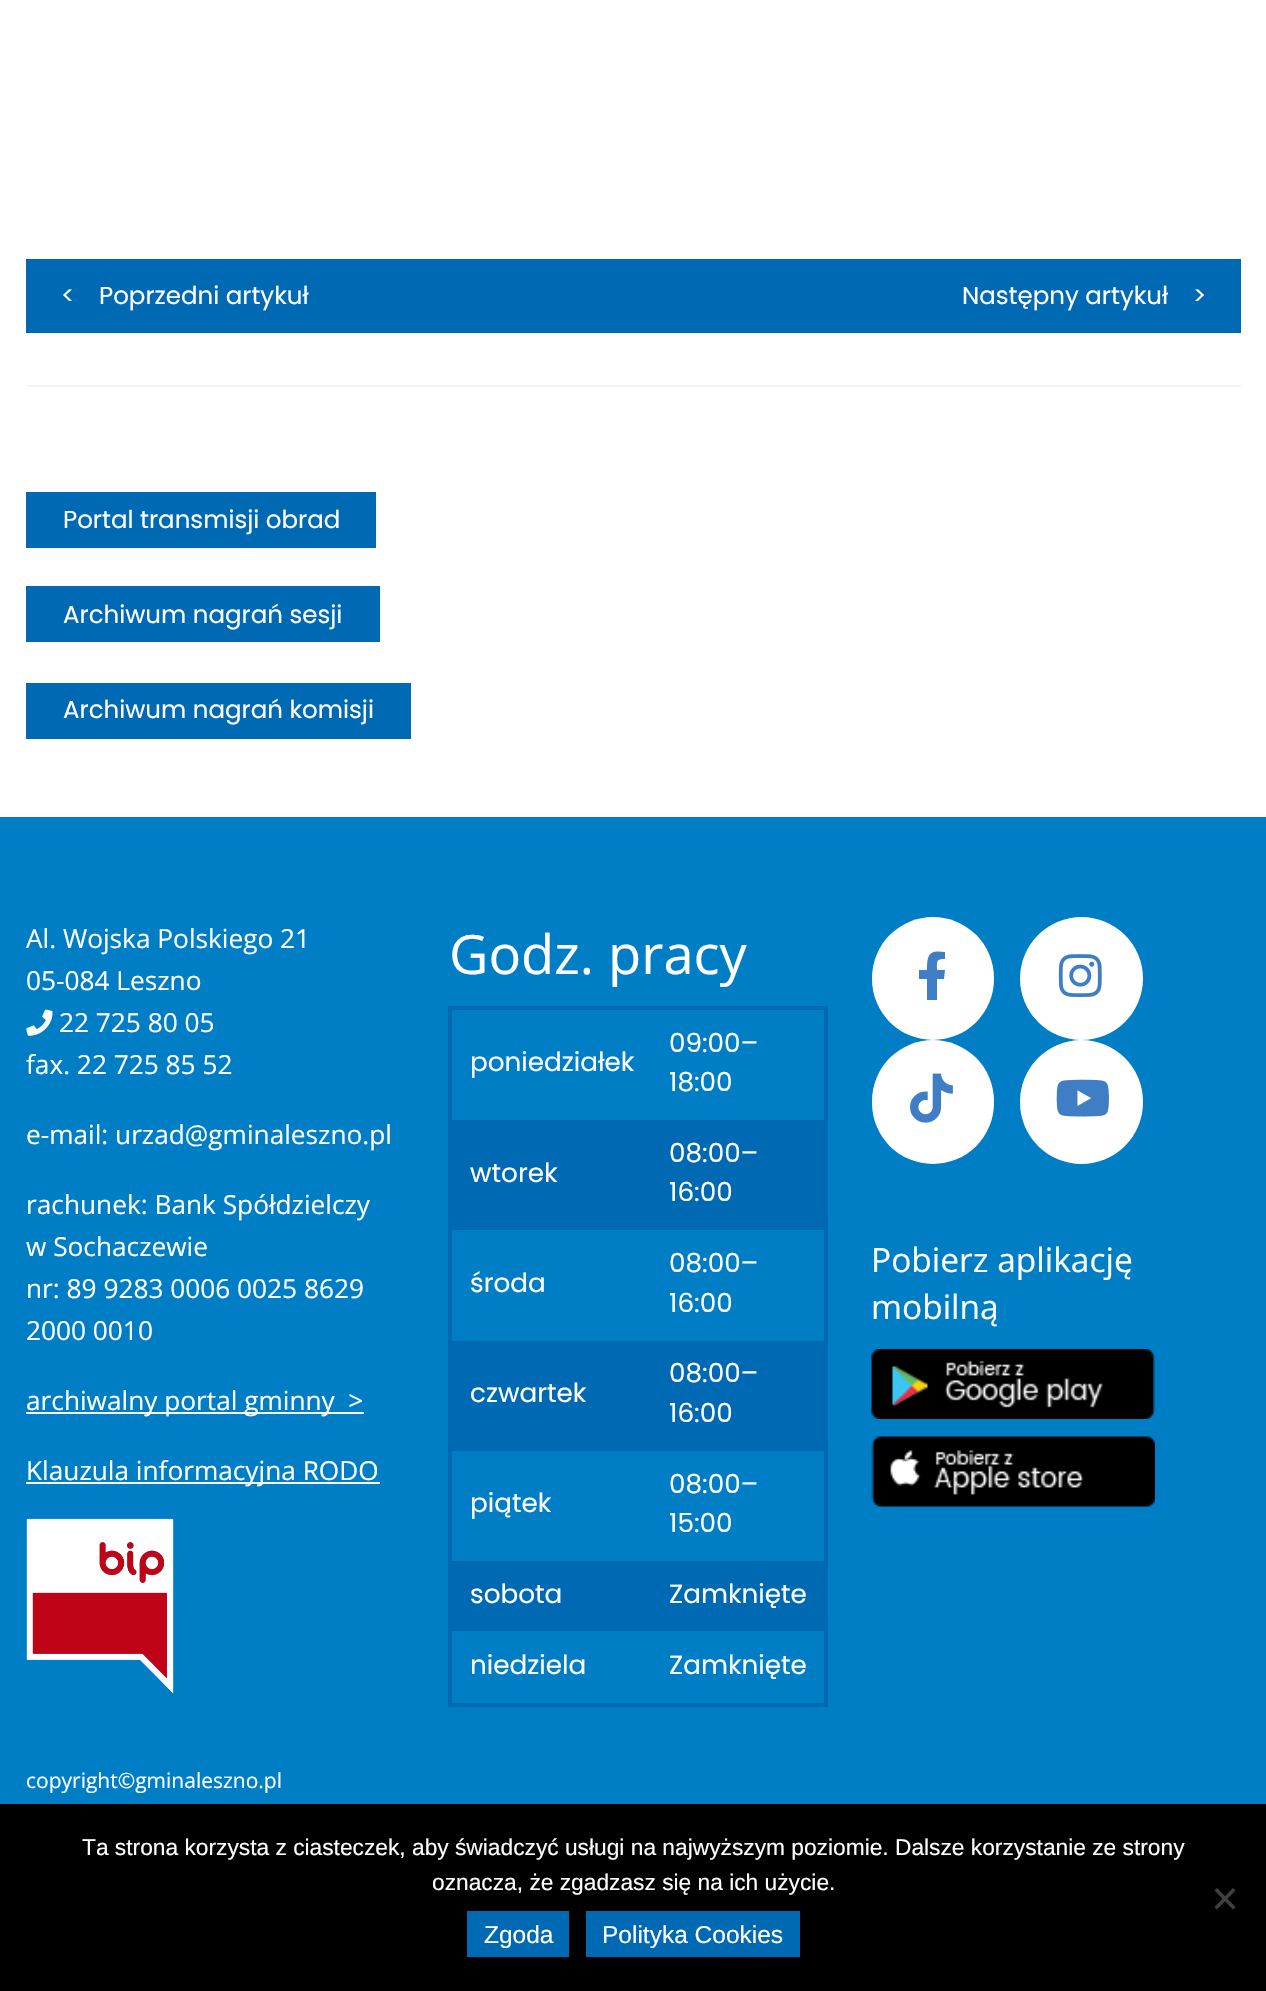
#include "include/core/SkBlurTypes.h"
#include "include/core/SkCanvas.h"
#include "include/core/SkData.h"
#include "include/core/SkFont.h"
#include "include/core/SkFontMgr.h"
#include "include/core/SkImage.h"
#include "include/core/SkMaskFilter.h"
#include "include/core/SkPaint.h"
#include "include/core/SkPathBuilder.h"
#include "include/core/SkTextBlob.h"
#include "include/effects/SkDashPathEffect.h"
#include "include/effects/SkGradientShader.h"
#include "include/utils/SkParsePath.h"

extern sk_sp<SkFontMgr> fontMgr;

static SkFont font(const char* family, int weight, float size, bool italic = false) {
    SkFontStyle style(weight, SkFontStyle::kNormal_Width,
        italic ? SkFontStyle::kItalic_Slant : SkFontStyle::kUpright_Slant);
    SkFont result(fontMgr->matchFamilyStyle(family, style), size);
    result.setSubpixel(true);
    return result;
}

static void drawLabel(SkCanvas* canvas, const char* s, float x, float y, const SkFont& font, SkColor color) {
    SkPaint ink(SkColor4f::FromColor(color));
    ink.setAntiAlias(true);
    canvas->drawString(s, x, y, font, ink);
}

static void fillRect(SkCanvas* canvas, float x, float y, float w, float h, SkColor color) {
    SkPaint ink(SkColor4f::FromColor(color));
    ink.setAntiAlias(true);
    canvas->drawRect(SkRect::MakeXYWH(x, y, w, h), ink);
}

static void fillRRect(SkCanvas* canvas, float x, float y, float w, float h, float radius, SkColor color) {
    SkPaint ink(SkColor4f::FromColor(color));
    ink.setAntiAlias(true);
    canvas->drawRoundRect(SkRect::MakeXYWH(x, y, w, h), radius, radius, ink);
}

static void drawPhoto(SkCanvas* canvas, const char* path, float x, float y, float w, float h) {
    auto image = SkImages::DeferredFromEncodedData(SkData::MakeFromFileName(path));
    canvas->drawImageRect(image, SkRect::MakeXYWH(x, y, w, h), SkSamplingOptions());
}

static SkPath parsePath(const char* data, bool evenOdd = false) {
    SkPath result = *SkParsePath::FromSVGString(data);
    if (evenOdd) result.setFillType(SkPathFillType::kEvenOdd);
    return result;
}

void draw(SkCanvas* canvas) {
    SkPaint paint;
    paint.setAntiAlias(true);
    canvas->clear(0xFFFFFFFF);
    fillRect(canvas, 26, 259, 1215, 74, 0xFF0069B3);
    SkFont font1 = font("Poppins", 400, 24.5f);
    drawLabel(canvas, "<", 61, 304, font1, 0xFFFEFEFE);
    drawLabel(canvas, "Poprzedni artykuł", 99, 304, font1, 0xFFFEFEFE);
    drawLabel(canvas, "Następny artykuł", 962, 304, font1, 0xFFFEFEFE);
    drawLabel(canvas, ">", 1193, 304, font1, 0xFFFEFEFE);
    fillRect(canvas, 26, 385, 1215, 2, 0xFFF4F4F4);
    fillRect(canvas, 26, 492, 350, 56, 0xFF0069B3);
    drawLabel(canvas, "Portal transmisji obrad", 63, 528, font1, 0xFFFEFEFE);
    fillRect(canvas, 26, 586, 354, 56, 0xFF0069B3);
    drawLabel(canvas, "Archiwum nagrań sesji", 63, 623, font1, 0xFFFEFEFE);
    fillRect(canvas, 26, 683, 385, 56, 0xFF0069B3);
    drawLabel(canvas, "Archiwum nagrań komisji", 63, 718, font1, 0xFFFEFEFE);
    fillRect(canvas, 0, 817, 1266, 987, 0xFF007EC5);
    SkFont font2 = font("Open Sans", 400, 26.25f);
    drawLabel(canvas, "Al. Wojska Polskiego 21", 26, 948, font2, 0xFFFEFEFE);
    drawLabel(canvas, "05-084 Leszno", 26, 990, font2, 0xFFFEFEFE);
    drawPhoto(canvas, "assets/img1.png", 26, 1009, 27, 27);
    drawLabel(canvas, "22 725 80 05", 59, 1032, font2, 0xFFFEFEFE);
    drawLabel(canvas, "fax. 22 725 85 52", 26, 1074, font2, 0xFFFEFEFE);
    drawLabel(canvas, "e-mail: urzad@gminaleszno.pl", 26, 1144, font2, 0xFFFEFEFE);
    drawLabel(canvas, "rachunek: Bank Spółdzielczy", 26, 1214, font2, 0xFFFEFEFE);
    drawLabel(canvas, "w Sochaczewie", 26, 1256, font2, 0xFFFEFEFE);
    drawLabel(canvas, "nr: 89 9283 0006 0025 8629", 26, 1298, font2, 0xFFFEFEFE);
    drawLabel(canvas, "2000 0010", 26, 1340, font2, 0xFFFEFEFE);
    fillRect(canvas, 26, 1412, 338, 2, 0xFFFEFEFE);
    drawLabel(canvas, "archiwalny portal gminny  >", 26, 1410, font2, 0xFFFEFEFE);
    fillRect(canvas, 26, 1482, 354, 2, 0xFFFEFEFE);
    drawLabel(canvas, "Klauzula informacyjna RODO", 26, 1480, font2, 0xFFFEFEFE);
    drawPhoto(canvas, "assets/img2.png", 26, 1518, 148, 175);
    SkFont font3 = font("Open Sans", 400, 54.25f);
    drawLabel(canvas, "Godz. pracy", 449, 974, font3, 0xFFFEFEFE);
    fillRect(canvas, 448, 1006, 380, 4, 0xFF0069B3);
    fillRect(canvas, 824, 1006, 4, 700, 0xFF0069B3);
    fillRect(canvas, 448, 1703, 380, 4, 0xFF0069B3);
    fillRect(canvas, 448, 1006, 4, 700, 0xFF0069B3);
    SkFont font4 = font("Poppins", 400, 26.25f);
    drawLabel(canvas, "poniedziałek", 470, 1071, font4, 0xFFFEFEFE);
    drawLabel(canvas, "09:00–", 669, 1052, font4, 0xFFFEFEFE);
    drawLabel(canvas, "18:00", 669, 1091, font4, 0xFFFEFEFE);
    fillRect(canvas, 452, 1120, 372, 110, 0xFF0069B3);
    drawLabel(canvas, "wtorek", 470, 1182, font4, 0xFFFEFEFE);
    drawLabel(canvas, "08:00–", 669, 1162, font4, 0xFFFEFEFE);
    drawLabel(canvas, "16:00", 669, 1201, font4, 0xFFFEFEFE);
    drawLabel(canvas, "środa", 470, 1292, font4, 0xFFFEFEFE);
    drawLabel(canvas, "08:00–", 669, 1272, font4, 0xFFFEFEFE);
    drawLabel(canvas, "16:00", 669, 1312, font4, 0xFFFEFEFE);
    fillRect(canvas, 452, 1341, 372, 110, 0xFF0069B3);
    drawLabel(canvas, "czwartek", 470, 1402, font4, 0xFFFEFEFE);
    drawLabel(canvas, "08:00–", 669, 1382, font4, 0xFFFEFEFE);
    drawLabel(canvas, "16:00", 669, 1422, font4, 0xFFFEFEFE);
    drawLabel(canvas, "piątek", 470, 1512, font4, 0xFFFEFEFE);
    drawLabel(canvas, "08:00–", 669, 1493, font4, 0xFFFEFEFE);
    drawLabel(canvas, "15:00", 669, 1532, font4, 0xFFFEFEFE);
    fillRect(canvas, 452, 1561, 372, 70, 0xFF0069B3);
    drawLabel(canvas, "sobota", 470, 1603, font4, 0xFFFEFEFE);
    drawLabel(canvas, "Zamknięte", 669, 1603, font4, 0xFFFEFEFE);
    drawLabel(canvas, "niedziela", 470, 1674, font4, 0xFFFEFEFE);
    drawLabel(canvas, "Zamknięte", 669, 1674, font4, 0xFFFEFEFE);
    fillRRect(canvas, 872, 917, 122, 123, 61, 0xFFFFFFFF);
    paint.setColor(0xFF3F7EC5);
    canvas->drawPath(parsePath("M944 979H937V1000H927V979H919V970H927C927 953 930 950 945 952V959C936 959 937 961 937 970H945Z"), paint);
    paint.setColor(0xFFFFFFFF);
    canvas->drawCircle(1081.5f, 978.5f, 61.5f, paint);
    drawPhoto(canvas, "assets/img3.png", 1058, 954, 44, 44);
    fillRRect(canvas, 872, 1040, 122, 124, 61, 0xFFFFFFFF);
    drawPhoto(canvas, "assets/img4.png", 910, 1073, 43, 50);
    fillRRect(canvas, 1020, 1040, 123, 124, 61.5f, 0xFFFFFFFF);
    drawPhoto(canvas, "assets/img5.png", 1056, 1079, 53, 38);
    SkFont font5 = font("Open Sans", 400, 33.5f);
    drawLabel(canvas, "Pobierz aplikację", 871, 1272, font5, 0xFFFEFEFE);
    drawLabel(canvas, "mobilną", 871, 1319, font5, 0xFFFEFEFE);
    drawPhoto(canvas, "assets/img6.png", 871, 1349, 284, 70);
    drawPhoto(canvas, "assets/img7.png", 871, 1436, 284, 71);
    SkFont font6 = font("Open Sans", 400, 21);
    drawLabel(canvas, "copyright©gminaleszno.pl", 26, 1788, font6, 0xFFFEFEFE);
    fillRect(canvas, 0, 1804, 1266, 187, 0xFF000000);
    SkFont font7 = font("Liberation Sans", 400, 22.75f);
    drawLabel(canvas, "Ta strona korzysta z ciasteczek, aby świadczyć usługi na najwyższym poziomie. Dalsze korzystanie ze strony", 82, 1855, font7, 0xFFFEFEFE);
    drawLabel(canvas, "oznacza, że zgadzasz się na ich użycie.", 432, 1890, font7, 0xFFFEFEFE);
    paint.setColor(0xFF404040);
    canvas->drawPath(parsePath("M1233 1888L1235.5 1890.5L1217 1909.5L1214.5 1907Z"), paint);
    canvas->drawPath(parsePath("M1214.5 1890.5L1217 1888L1235.5 1907L1233 1909.5Z"), paint);
    fillRect(canvas, 467, 1911, 102, 46, 0xFF0069B3);
    SkFont font8 = font("Liberation Sans", 400, 24.5f);
    drawLabel(canvas, "Zgoda", 484, 1943, font8, 0xFFFEFEFE);
    fillRect(canvas, 586, 1911, 214, 46, 0xFF0069B3);
    drawLabel(canvas, "Polityka Cookies", 602, 1943, font8, 0xFFFEFEFE);
}
